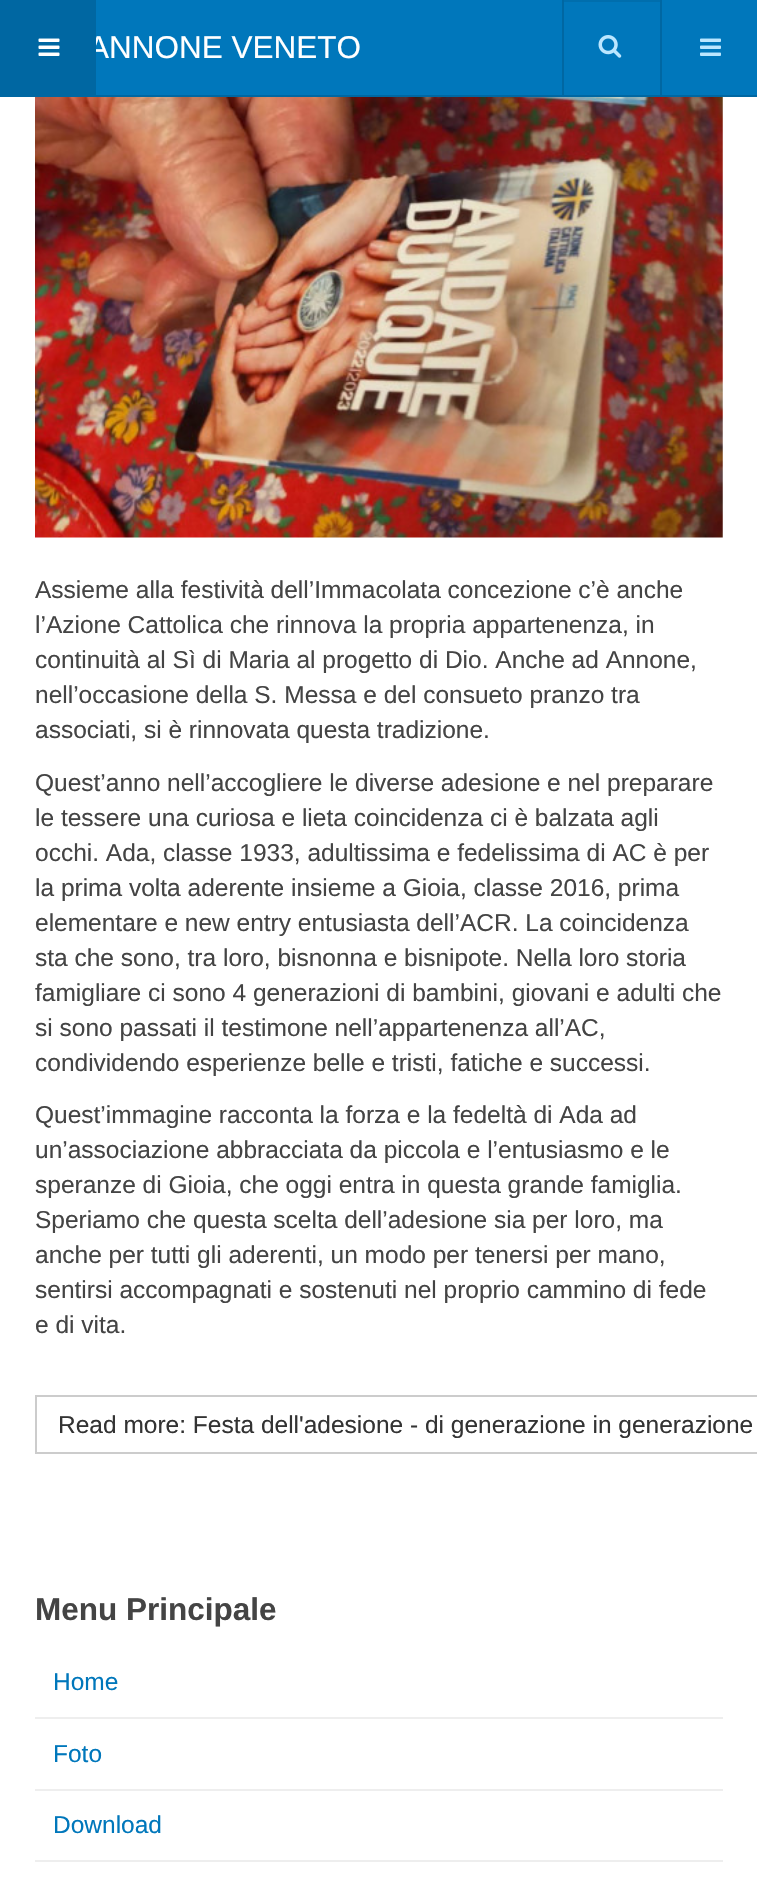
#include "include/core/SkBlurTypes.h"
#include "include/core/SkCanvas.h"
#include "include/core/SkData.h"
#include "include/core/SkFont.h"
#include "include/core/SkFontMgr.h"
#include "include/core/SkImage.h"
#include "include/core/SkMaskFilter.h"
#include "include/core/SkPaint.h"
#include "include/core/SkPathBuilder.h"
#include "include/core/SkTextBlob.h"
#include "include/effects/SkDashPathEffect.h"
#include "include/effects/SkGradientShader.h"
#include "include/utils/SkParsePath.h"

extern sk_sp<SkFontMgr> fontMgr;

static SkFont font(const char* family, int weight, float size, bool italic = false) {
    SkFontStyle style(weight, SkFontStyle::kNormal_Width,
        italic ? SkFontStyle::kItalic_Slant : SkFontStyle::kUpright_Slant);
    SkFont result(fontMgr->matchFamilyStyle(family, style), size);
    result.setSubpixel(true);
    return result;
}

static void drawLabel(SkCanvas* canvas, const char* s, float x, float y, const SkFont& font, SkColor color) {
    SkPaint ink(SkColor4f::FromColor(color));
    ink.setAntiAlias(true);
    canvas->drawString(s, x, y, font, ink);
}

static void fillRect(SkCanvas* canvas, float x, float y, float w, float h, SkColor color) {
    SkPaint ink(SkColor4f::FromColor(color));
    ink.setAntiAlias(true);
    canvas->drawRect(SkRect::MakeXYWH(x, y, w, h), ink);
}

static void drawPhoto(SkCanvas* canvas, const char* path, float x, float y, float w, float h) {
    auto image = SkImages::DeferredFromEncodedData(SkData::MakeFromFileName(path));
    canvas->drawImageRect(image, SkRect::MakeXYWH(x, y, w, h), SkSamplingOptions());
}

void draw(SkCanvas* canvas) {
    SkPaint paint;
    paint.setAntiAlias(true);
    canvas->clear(0xFFFFFFFF);
    fillRect(canvas, 96, 0, 661, 95, 0xFF0077BB);
    fillRect(canvas, 0, 95, 757, 2, 0xFF0067A2);
    SkFont font1 = font("Liberation Sans", 400, 31.5f);
    drawLabel(canvas, "ANNONE VENETO", 88, 58, font1, 0xFFFFFFFF);
    fillRect(canvas, 0, 0, 96, 95, 0xFF0067A2);
    drawPhoto(canvas, "assets/img1.png", 38, 38, 22, 18);
    fillRect(canvas, 660, 0, 2, 95, 0xFF0067A2);
    fillRect(canvas, 562, 0, 2, 95, 0xFF0067A2);
    fillRect(canvas, 564, 0, 96, 2, 0xFF006EAD);
    drawPhoto(canvas, "assets/img2.png", 598, 35, 24, 23);
    drawPhoto(canvas, "assets/img3.png", 700, 38, 21, 18);
    drawPhoto(canvas, "assets/img4.png", 35, 97, 688, 441);
    SkFont font2 = font("Liberation Sans", 400, 24.5f);
    drawLabel(canvas, "Assieme alla festività dell’Immacolata concezione c’è anche", 35, 598, font2, 0xFF444444);
    drawLabel(canvas, "l’Azione Cattolica che rinnova la propria appartenenza, in", 35, 633, font2, 0xFF444444);
    drawLabel(canvas, "continuità al Sì di Maria al progetto di Dio. Anche ad Annone,", 35, 668, font2, 0xFF444444);
    drawLabel(canvas, "nell’occasione della S. Messa e del consueto pranzo tra", 35, 703, font2, 0xFF444444);
    drawLabel(canvas, "associati, si è rinnovata questa tradizione.", 35, 738, font2, 0xFF444444);
    drawLabel(canvas, "Quest’anno nell’accogliere le diverse adesione e nel preparare", 35, 791, font2, 0xFF444444);
    drawLabel(canvas, "le tessere una curiosa e lieta coincidenza ci è balzata agli", 35, 826, font2, 0xFF444444);
    drawLabel(canvas, "occhi. Ada, classe 1933, adultissima e fedelissima di AC è per", 35, 861, font2, 0xFF444444);
    drawLabel(canvas, "la prima volta aderente insieme a Gioia, classe 2016, prima", 35, 896, font2, 0xFF444444);
    drawLabel(canvas, "elementare e new entry entusiasta dell’ACR. La coincidenza", 35, 931, font2, 0xFF444444);
    drawLabel(canvas, "sta che sono, tra loro, bisnonna e bisnipote. Nella loro storia", 35, 966, font2, 0xFF444444);
    drawLabel(canvas, "famigliare ci sono 4 generazioni di bambini, giovani e adulti che", 35, 1001, font2, 0xFF444444);
    drawLabel(canvas, "si sono passati il testimone nell’appartenenza all’AC,", 35, 1036, font2, 0xFF444444);
    drawLabel(canvas, "condividendo esperienze belle e tristi, fatiche e successi.", 35, 1071, font2, 0xFF444444);
    drawLabel(canvas, "Quest’immagine racconta la forza e la fedeltà di Ada ad", 35, 1123, font2, 0xFF444444);
    drawLabel(canvas, "un’associazione abbracciata da piccola e l’entusiasmo e le", 35, 1158, font2, 0xFF444444);
    drawLabel(canvas, "speranze di Gioia, che oggi entra in questa grande famiglia.", 35, 1193, font2, 0xFF444444);
    drawLabel(canvas, "Speriamo che questa scelta dell’adesione sia per loro, ma", 35, 1228, font2, 0xFF444444);
    drawLabel(canvas, "anche per tutti gli aderenti, un modo per tenersi per mano,", 35, 1263, font2, 0xFF444444);
    drawLabel(canvas, "sentirsi accompagnati e sostenuti nel proprio cammino di fede", 35, 1298, font2, 0xFF444444);
    drawLabel(canvas, "e di vita.", 35, 1333, font2, 0xFF444444);
    paint.setStroke(true);
    paint.setStrokeWidth(2);
    paint.setColor(0xFFCCCCCC);
    canvas->drawRect(SkRect::MakeXYWH(36, 1396, 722, 57), paint);
    drawLabel(canvas, "Read more: Festa dell'adesione - di generazione in generazione", 58, 1433, font2, 0xFF333333);
    SkFont font3 = font("Liberation Sans", 700, 31.5f);
    drawLabel(canvas, "Menu Principale", 35, 1620, font3, 0xFF444444);
    drawLabel(canvas, "Home", 53, 1690, font2, 0xFF0077BB);
    fillRect(canvas, 35, 1717, 688, 2, 0xFFEEEEEE);
    drawLabel(canvas, "Foto", 53, 1762, font2, 0xFF0077BB);
    fillRect(canvas, 35, 1789, 688, 2, 0xFFEEEEEE);
    drawLabel(canvas, "Download", 53, 1833, font2, 0xFF0077BB);
    fillRect(canvas, 35, 1860, 688, 2, 0xFFEEEEEE);
}
